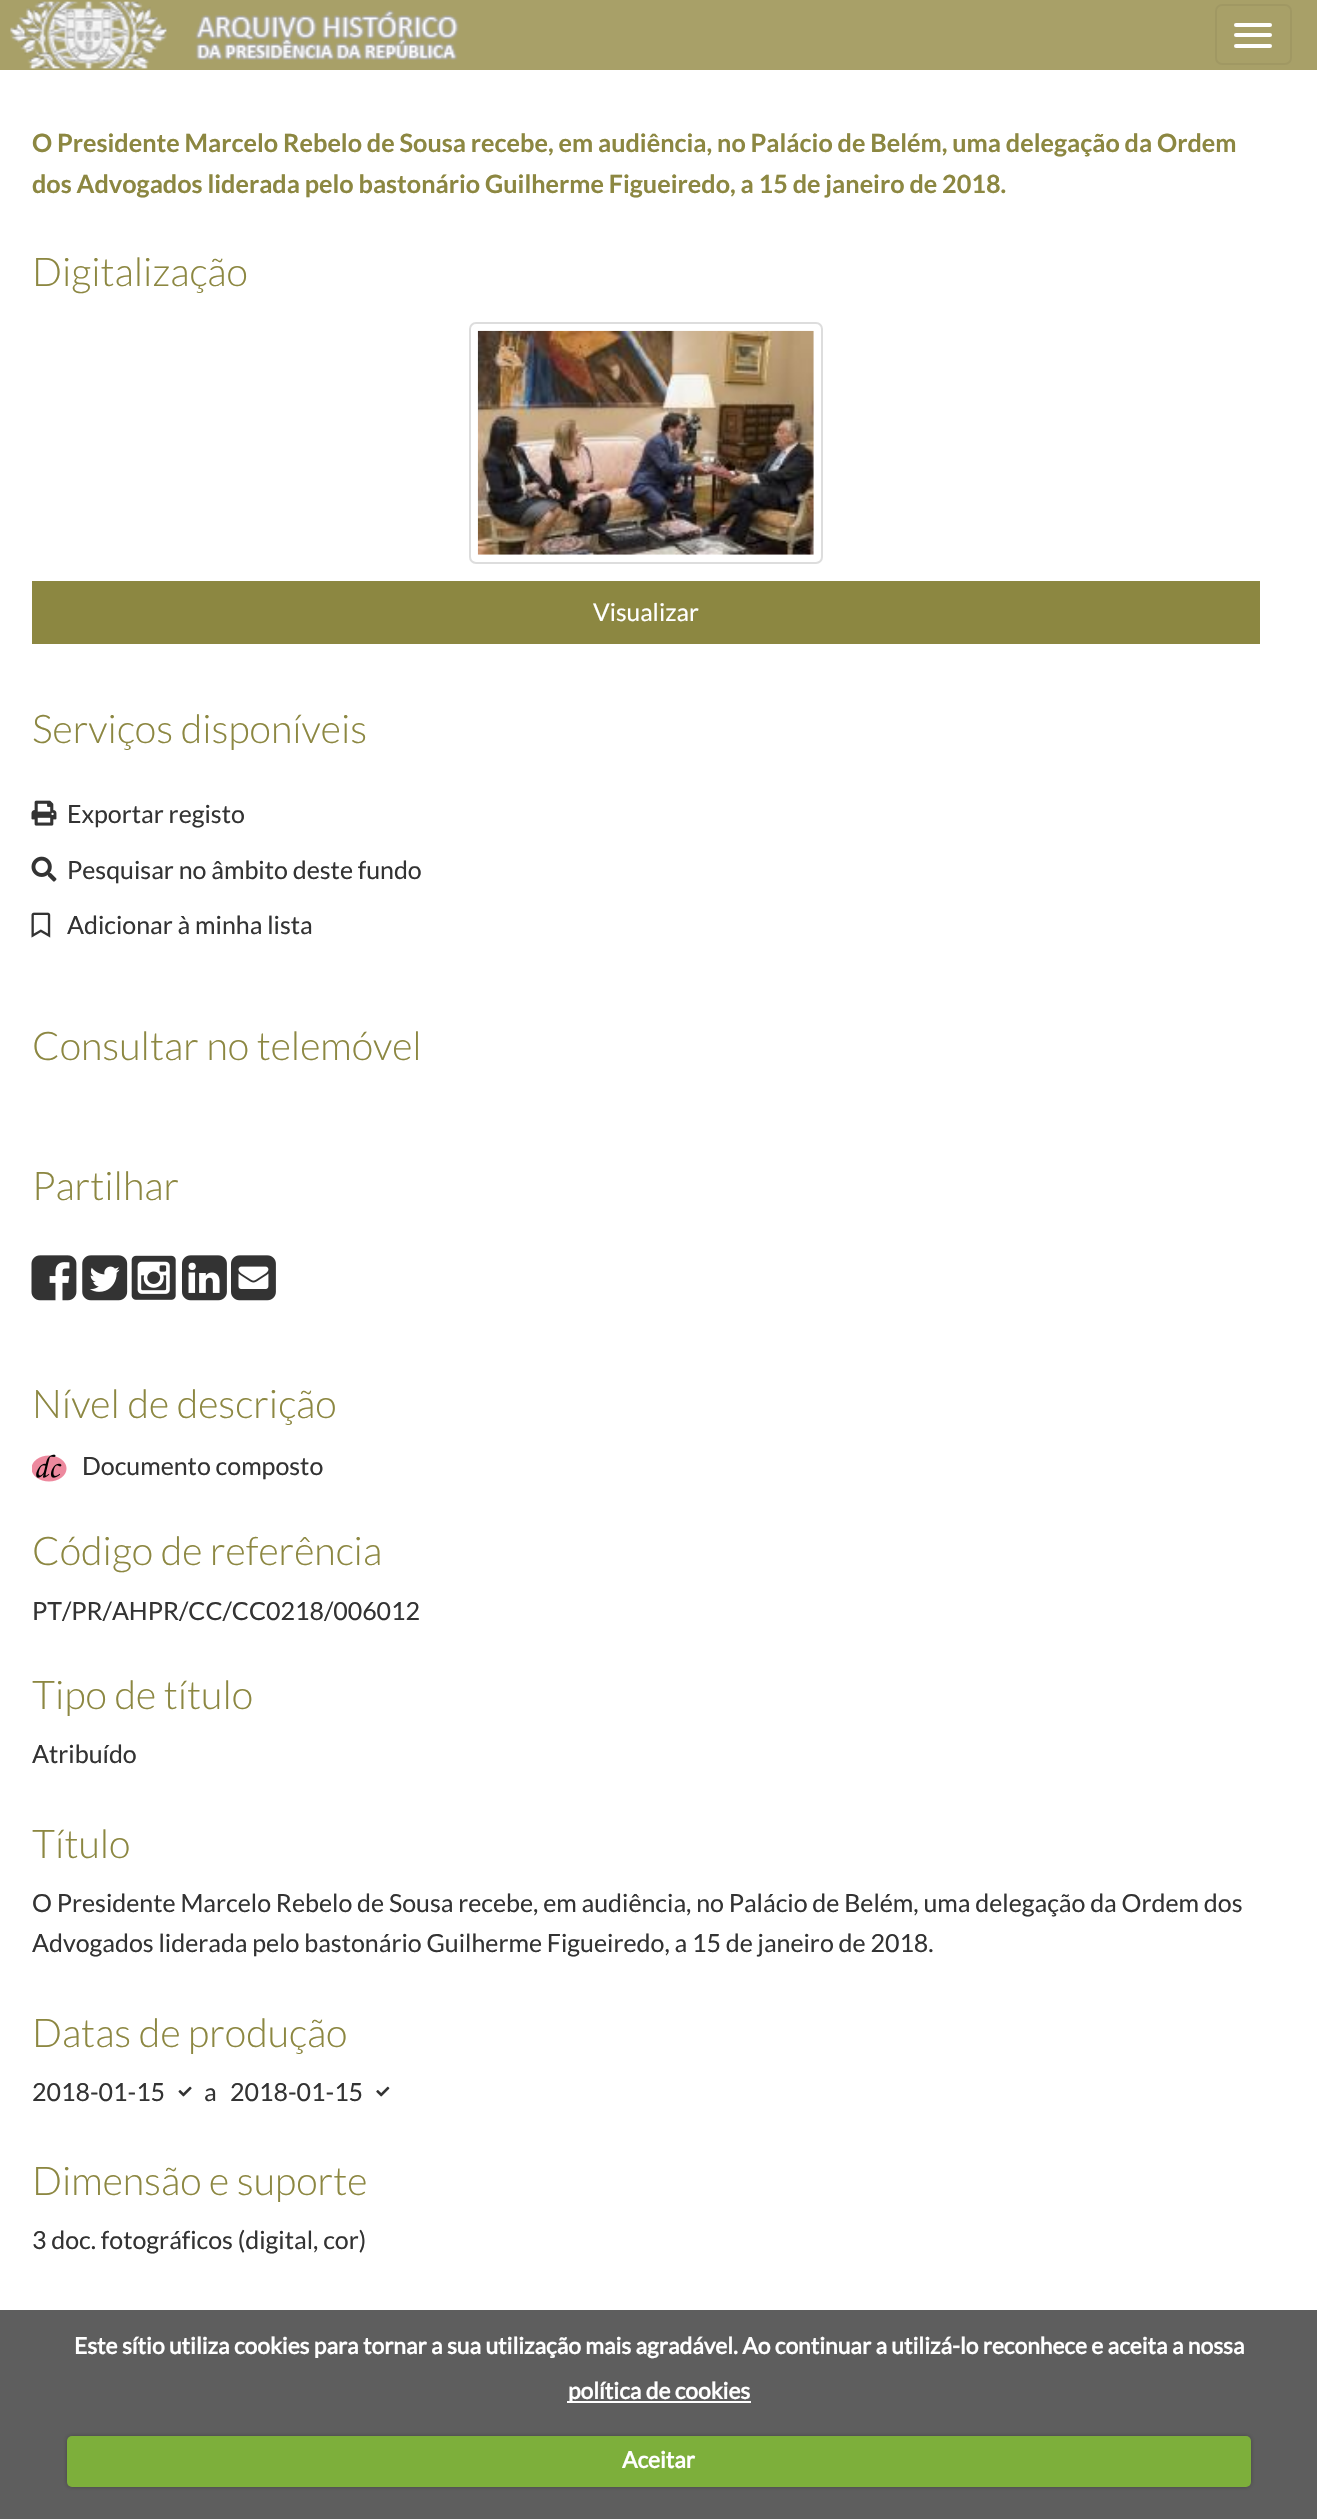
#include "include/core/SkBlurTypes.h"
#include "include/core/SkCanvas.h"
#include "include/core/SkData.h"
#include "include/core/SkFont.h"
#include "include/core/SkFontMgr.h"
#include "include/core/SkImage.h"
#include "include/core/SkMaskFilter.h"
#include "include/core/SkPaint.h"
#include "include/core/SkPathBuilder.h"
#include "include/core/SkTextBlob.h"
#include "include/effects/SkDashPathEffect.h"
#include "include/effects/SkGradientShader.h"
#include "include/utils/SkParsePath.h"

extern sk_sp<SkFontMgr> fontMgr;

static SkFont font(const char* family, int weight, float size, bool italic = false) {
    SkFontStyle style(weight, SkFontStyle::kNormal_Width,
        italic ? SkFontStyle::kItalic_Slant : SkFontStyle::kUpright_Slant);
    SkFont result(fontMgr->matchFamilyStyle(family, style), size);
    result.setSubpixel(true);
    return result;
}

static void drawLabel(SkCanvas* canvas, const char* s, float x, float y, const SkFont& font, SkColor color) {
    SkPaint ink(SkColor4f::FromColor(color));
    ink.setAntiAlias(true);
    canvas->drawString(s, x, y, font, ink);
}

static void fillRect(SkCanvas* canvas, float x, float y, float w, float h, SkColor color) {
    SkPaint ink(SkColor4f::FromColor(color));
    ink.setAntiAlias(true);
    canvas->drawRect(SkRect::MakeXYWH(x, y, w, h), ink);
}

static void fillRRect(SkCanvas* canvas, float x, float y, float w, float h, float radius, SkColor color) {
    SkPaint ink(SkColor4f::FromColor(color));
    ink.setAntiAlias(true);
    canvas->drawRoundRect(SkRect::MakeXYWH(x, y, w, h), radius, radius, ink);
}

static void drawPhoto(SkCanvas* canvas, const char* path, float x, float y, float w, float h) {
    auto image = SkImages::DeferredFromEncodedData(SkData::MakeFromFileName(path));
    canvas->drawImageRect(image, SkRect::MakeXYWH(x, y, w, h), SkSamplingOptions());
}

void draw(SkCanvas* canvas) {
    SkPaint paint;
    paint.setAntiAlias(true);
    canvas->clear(0xFFFFFFFF);
    fillRect(canvas, 0, 2310, 1317, 209, 0xFF5E5E5E);
    fillRect(canvas, 0, 0, 1317, 70, 0xFFA8A068);
    drawPhoto(canvas, "assets/img1.png", 10, 1, 449, 68);
    paint.setStroke(true);
    paint.setStrokeWidth(2);
    paint.setColor(0xFFA09863);
    canvas->drawRoundRect(SkRect::MakeXYWH(1216, 5, 75, 59), 6, 6, paint);
    fillRRect(canvas, 1234, 23, 38, 4, 2, 0xFFFFFFFF);
    fillRRect(canvas, 1234, 33, 38, 4, 2, 0xFFFFFFFF);
    fillRRect(canvas, 1234, 44, 38, 4, 2, 0xFFFFFFFF);
    SkFont font1 = font("Lato", 700, 25.2f);
    drawLabel(canvas, "O Presidente Marcelo Rebelo de Sousa recebe, em audiência, no Palácio de Belém, uma delegação da Ordem", 32, 152, font1, 0xFF8C8741);
    drawLabel(canvas, "dos Advogados liderada pelo bastonário Guilherme Figueiredo, a 15 de janeiro de 2018.", 32, 193, font1, 0xFF8C8741);
    SkFont font2 = font("Lato", 300, 39.4f);
    drawLabel(canvas, "Digitalização", 32, 286, font2, 0xFF8C8741);
    paint.setColor(0xFFDDDDDD);
    canvas->drawRoundRect(SkRect::MakeXYWH(470, 323, 352, 240), 6, 6, paint);
    drawPhoto(canvas, "assets/img2.png", 477, 330, 337, 225);
    fillRect(canvas, 32, 581, 1228, 63, 0xFF8C8741);
    SkFont font3 = font("Lato", 400, 24.5f);
    drawLabel(canvas, "Visualizar", 593, 621, font3, 0xFFFFFFFF);
    drawLabel(canvas, "Serviços disponíveis", 32, 743, font2, 0xFF8C8741);
    drawPhoto(canvas, "assets/img3.png", 31, 800, 26, 26);
    SkFont font4 = font("Lato", 400, 24.95f);
    drawLabel(canvas, "Exportar registo", 67, 823, font4, 0xFF333333);
    drawPhoto(canvas, "assets/img4.png", 31, 856, 26, 26);
    drawLabel(canvas, "Pesquisar no âmbito deste fundo", 67, 879, font4, 0xFF333333);
    drawPhoto(canvas, "assets/img5.png", 31, 912, 20, 26);
    drawLabel(canvas, "Adicionar à minha lista", 67, 934, font4, 0xFF333333);
    drawLabel(canvas, "Consultar no telemóvel", 32, 1060, font2, 0xFF8C8741);
    drawLabel(canvas, "Partilhar", 32, 1200, font2, 0xFF8C8741);
    drawPhoto(canvas, "assets/img6.png", 31, 1255, 46, 46);
    drawPhoto(canvas, "assets/img7.png", 82, 1255, 46, 46);
    drawPhoto(canvas, "assets/img8.png", 131, 1255, 45, 45);
    drawPhoto(canvas, "assets/img9.png", 182, 1255, 45, 46);
    drawPhoto(canvas, "assets/img10.png", 231, 1255, 45, 46);
    drawLabel(canvas, "Nível de descrição", 32, 1418, font2, 0xFF8C8741);
    drawPhoto(canvas, "assets/img11.png", 32, 1454, 35, 28);
    drawLabel(canvas, "Documento composto", 82, 1475, font4, 0xFF333333);
    drawLabel(canvas, "Código de referência", 32, 1565, font2, 0xFF8C8741);
    drawLabel(canvas, "PT/PR/AHPR/CC/CC0218/006012", 32, 1620, font4, 0xFF333333);
    drawLabel(canvas, "Tipo de título", 32, 1709, font2, 0xFF8C8741);
    drawLabel(canvas, "Atribuído", 32, 1763, font4, 0xFF333333);
    drawLabel(canvas, "Título", 32, 1858, font2, 0xFF8C8741);
    drawLabel(canvas, "O Presidente Marcelo Rebelo de Sousa recebe, em audiência, no Palácio de Belém, uma delegação da Ordem dos", 32, 1912, font4, 0xFF333333);
    drawLabel(canvas, "Advogados liderada pelo bastonário Guilherme Figueiredo, a 15 de janeiro de 2018.", 32, 1952, font4, 0xFF333333);
    drawLabel(canvas, "Datas de produção", 32, 2047, font2, 0xFF8C8741);
    drawLabel(canvas, "2018-01-15", 32, 2101, font4, 0xFF333333);
    drawPhoto(canvas, "assets/img12.png", 178, 2086, 14, 11);
    drawLabel(canvas, "a", 204, 2101, font4, 0xFF333333);
    drawLabel(canvas, "2018-01-15", 230, 2101, font4, 0xFF333333);
    drawPhoto(canvas, "assets/img13.png", 376, 2086, 14, 11);
    drawLabel(canvas, "Dimensão e suporte", 32, 2195, font2, 0xFF8C8741);
    drawLabel(canvas, "3 doc. fotográficos (digital, cor)", 32, 2249, font4, 0xFF333333);
    SkFont font5 = font("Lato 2", 700, 22.75f);
    drawLabel(canvas, "Este sítio utiliza cookies para tornar a sua utilização mais agradável. Ao continuar a utilizá-lo reconhece e aceita a nossa", 74, 2354, font5, 0xFFFFFFFF);
    fillRect(canvas, 567, 2401, 184, 2, 0xFFFFFFFF);
    drawLabel(canvas, "política de cookies", 568, 2399, font5, 0xFFFFFFFF);
    paint.setStroke(false);
    paint.setColor(0x40000000);
    paint.setMaskFilter(SkMaskFilter::MakeBlur(kNormal_SkBlurStyle, 2));
    canvas->drawRoundRect(SkRect::MakeXYWH(67, 2436, 1184, 51), 5, 5, paint);
    paint.setMaskFilter(nullptr);
    fillRRect(canvas, 67, 2436, 1184, 51, 5, 0xFF7DAF3B);
    drawLabel(canvas, "Aceitar", 622, 2468, font5, 0xFFFFFFFF);
}
